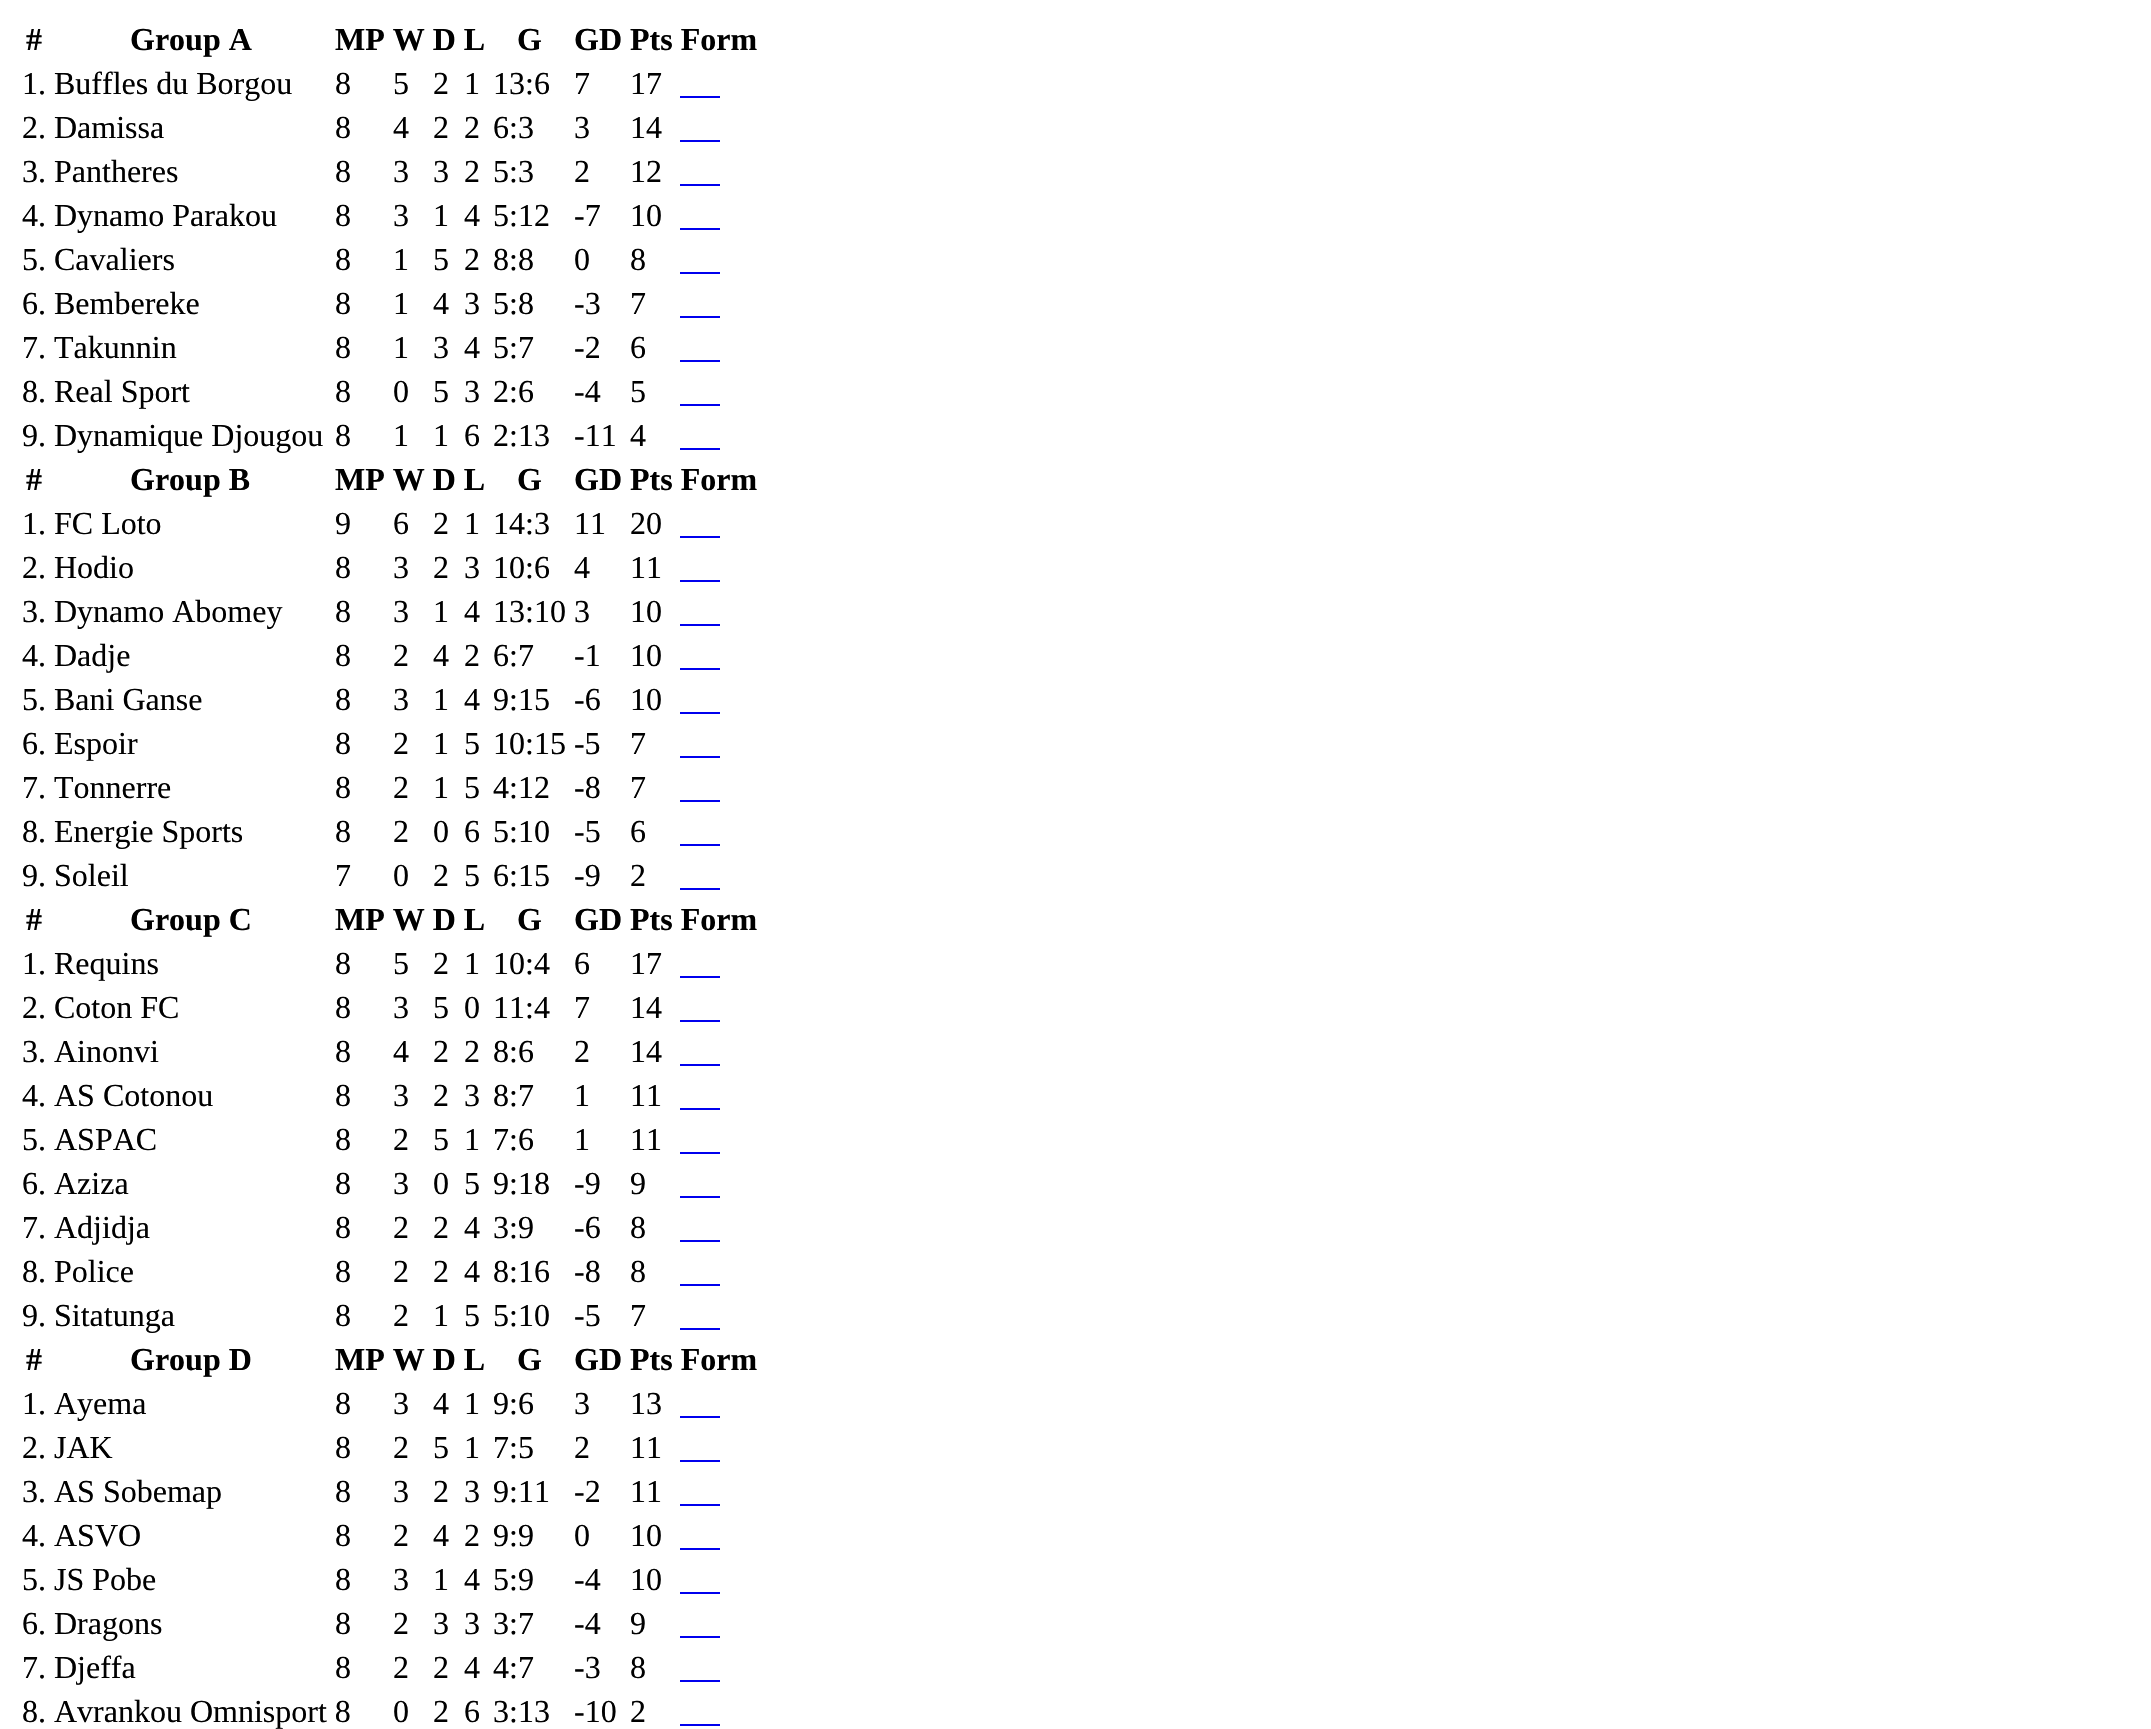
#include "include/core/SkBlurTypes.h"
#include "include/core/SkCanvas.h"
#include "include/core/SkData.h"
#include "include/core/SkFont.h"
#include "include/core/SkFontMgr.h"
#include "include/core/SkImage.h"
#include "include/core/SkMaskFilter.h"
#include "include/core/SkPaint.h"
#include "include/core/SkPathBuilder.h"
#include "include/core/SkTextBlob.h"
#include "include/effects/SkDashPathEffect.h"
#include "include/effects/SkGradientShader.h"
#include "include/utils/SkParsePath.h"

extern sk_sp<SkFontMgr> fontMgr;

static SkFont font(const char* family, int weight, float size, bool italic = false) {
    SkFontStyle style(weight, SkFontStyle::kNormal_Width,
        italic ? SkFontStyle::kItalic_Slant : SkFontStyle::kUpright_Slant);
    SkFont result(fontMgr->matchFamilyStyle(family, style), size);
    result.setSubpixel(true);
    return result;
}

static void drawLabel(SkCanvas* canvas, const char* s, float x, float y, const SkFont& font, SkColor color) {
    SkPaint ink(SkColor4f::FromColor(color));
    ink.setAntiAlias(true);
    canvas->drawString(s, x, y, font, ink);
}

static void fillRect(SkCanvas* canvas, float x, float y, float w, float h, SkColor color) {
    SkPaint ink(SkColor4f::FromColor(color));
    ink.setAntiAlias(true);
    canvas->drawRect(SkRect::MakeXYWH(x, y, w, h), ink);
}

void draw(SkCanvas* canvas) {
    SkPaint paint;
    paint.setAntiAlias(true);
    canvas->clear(0xFFFFFFFF);
    SkFont font1 = font("Liberation Serif", 700, 32);
    drawLabel(canvas, "#", 26, 50, font1, 0xFF000000);
    drawLabel(canvas, "Group A", 130, 50, font1, 0xFF000000);
    drawLabel(canvas, "MP W D L", 335, 50, font1, 0xFF000000);
    drawLabel(canvas, "G", 517, 50, font1, 0xFF000000);
    drawLabel(canvas, "GD Pts Form", 574, 50, font1, 0xFF000000);
    SkFont font2 = font("Liberation Serif", 400, 32);
    drawLabel(canvas, "1. Buffles du Borgou", 22, 94, font2, 0xFF000000);
    drawLabel(canvas, "8", 335, 94, font2, 0xFF000000);
    drawLabel(canvas, "5", 393, 94, font2, 0xFF000000);
    drawLabel(canvas, "2", 433, 94, font2, 0xFF000000);
    drawLabel(canvas, "1", 464, 94, font2, 0xFF000000);
    drawLabel(canvas, "13:6", 493, 94, font2, 0xFF000000);
    drawLabel(canvas, "7", 574, 94, font2, 0xFF000000);
    drawLabel(canvas, "17", 630, 94, font2, 0xFF000000);
    fillRect(canvas, 680, 96, 40, 2, 0xFF0000EE);
    drawLabel(canvas, "2. Damissa", 22, 138, font2, 0xFF000000);
    drawLabel(canvas, "8", 335, 138, font2, 0xFF000000);
    drawLabel(canvas, "4", 393, 138, font2, 0xFF000000);
    drawLabel(canvas, "2", 433, 138, font2, 0xFF000000);
    drawLabel(canvas, "2", 464, 138, font2, 0xFF000000);
    drawLabel(canvas, "6:3", 493, 138, font2, 0xFF000000);
    drawLabel(canvas, "3", 574, 138, font2, 0xFF000000);
    drawLabel(canvas, "14", 630, 138, font2, 0xFF000000);
    fillRect(canvas, 680, 140, 40, 2, 0xFF0000EE);
    drawLabel(canvas, "3. Pantheres", 22, 182, font2, 0xFF000000);
    drawLabel(canvas, "8", 335, 182, font2, 0xFF000000);
    drawLabel(canvas, "3", 393, 182, font2, 0xFF000000);
    drawLabel(canvas, "3", 433, 182, font2, 0xFF000000);
    drawLabel(canvas, "2", 464, 182, font2, 0xFF000000);
    drawLabel(canvas, "5:3", 493, 182, font2, 0xFF000000);
    drawLabel(canvas, "2", 574, 182, font2, 0xFF000000);
    drawLabel(canvas, "12", 630, 182, font2, 0xFF000000);
    fillRect(canvas, 680, 184, 40, 2, 0xFF0000EE);
    drawLabel(canvas, "4. Dynamo Parakou", 22, 226, font2, 0xFF000000);
    drawLabel(canvas, "8", 335, 226, font2, 0xFF000000);
    drawLabel(canvas, "3", 393, 226, font2, 0xFF000000);
    drawLabel(canvas, "1", 433, 226, font2, 0xFF000000);
    drawLabel(canvas, "4", 464, 226, font2, 0xFF000000);
    drawLabel(canvas, "5:12", 493, 226, font2, 0xFF000000);
    drawLabel(canvas, "-7", 574, 226, font2, 0xFF000000);
    drawLabel(canvas, "10", 630, 226, font2, 0xFF000000);
    fillRect(canvas, 680, 228, 40, 2, 0xFF0000EE);
    drawLabel(canvas, "5. Cavaliers", 22, 270, font2, 0xFF000000);
    drawLabel(canvas, "8", 335, 270, font2, 0xFF000000);
    drawLabel(canvas, "1", 393, 270, font2, 0xFF000000);
    drawLabel(canvas, "5", 433, 270, font2, 0xFF000000);
    drawLabel(canvas, "2", 464, 270, font2, 0xFF000000);
    drawLabel(canvas, "8:8", 493, 270, font2, 0xFF000000);
    drawLabel(canvas, "0", 574, 270, font2, 0xFF000000);
    drawLabel(canvas, "8", 630, 270, font2, 0xFF000000);
    fillRect(canvas, 680, 272, 40, 2, 0xFF0000EE);
    drawLabel(canvas, "6. Bembereke", 22, 314, font2, 0xFF000000);
    drawLabel(canvas, "8", 335, 314, font2, 0xFF000000);
    drawLabel(canvas, "1", 393, 314, font2, 0xFF000000);
    drawLabel(canvas, "4", 433, 314, font2, 0xFF000000);
    drawLabel(canvas, "3", 464, 314, font2, 0xFF000000);
    drawLabel(canvas, "5:8", 493, 314, font2, 0xFF000000);
    drawLabel(canvas, "-3", 574, 314, font2, 0xFF000000);
    drawLabel(canvas, "7", 630, 314, font2, 0xFF000000);
    fillRect(canvas, 680, 316, 40, 2, 0xFF0000EE);
    drawLabel(canvas, "7. Takunnin", 22, 358, font2, 0xFF000000);
    drawLabel(canvas, "8", 335, 358, font2, 0xFF000000);
    drawLabel(canvas, "1", 393, 358, font2, 0xFF000000);
    drawLabel(canvas, "3", 433, 358, font2, 0xFF000000);
    drawLabel(canvas, "4", 464, 358, font2, 0xFF000000);
    drawLabel(canvas, "5:7", 493, 358, font2, 0xFF000000);
    drawLabel(canvas, "-2", 574, 358, font2, 0xFF000000);
    drawLabel(canvas, "6", 630, 358, font2, 0xFF000000);
    fillRect(canvas, 680, 360, 40, 2, 0xFF0000EE);
    drawLabel(canvas, "8. Real Sport", 22, 402, font2, 0xFF000000);
    drawLabel(canvas, "8", 335, 402, font2, 0xFF000000);
    drawLabel(canvas, "0", 393, 402, font2, 0xFF000000);
    drawLabel(canvas, "5", 433, 402, font2, 0xFF000000);
    drawLabel(canvas, "3", 464, 402, font2, 0xFF000000);
    drawLabel(canvas, "2:6", 493, 402, font2, 0xFF000000);
    drawLabel(canvas, "-4", 574, 402, font2, 0xFF000000);
    drawLabel(canvas, "5", 630, 402, font2, 0xFF000000);
    fillRect(canvas, 680, 404, 40, 2, 0xFF0000EE);
    drawLabel(canvas, "9. Dynamique Djougou", 22, 446, font2, 0xFF000000);
    drawLabel(canvas, "8", 335, 446, font2, 0xFF000000);
    drawLabel(canvas, "1", 393, 446, font2, 0xFF000000);
    drawLabel(canvas, "1", 433, 446, font2, 0xFF000000);
    drawLabel(canvas, "6", 464, 446, font2, 0xFF000000);
    drawLabel(canvas, "2:13", 493, 446, font2, 0xFF000000);
    drawLabel(canvas, "-11", 574, 446, font2, 0xFF000000);
    drawLabel(canvas, "4", 630, 446, font2, 0xFF000000);
    fillRect(canvas, 680, 448, 40, 2, 0xFF0000EE);
    drawLabel(canvas, "#", 26, 490, font1, 0xFF000000);
    drawLabel(canvas, "Group B", 130, 490, font1, 0xFF000000);
    drawLabel(canvas, "MP W D L", 335, 490, font1, 0xFF000000);
    drawLabel(canvas, "G", 517, 490, font1, 0xFF000000);
    drawLabel(canvas, "GD Pts Form", 574, 490, font1, 0xFF000000);
    drawLabel(canvas, "1. FC Loto", 22, 534, font2, 0xFF000000);
    drawLabel(canvas, "9", 335, 534, font2, 0xFF000000);
    drawLabel(canvas, "6", 393, 534, font2, 0xFF000000);
    drawLabel(canvas, "2", 433, 534, font2, 0xFF000000);
    drawLabel(canvas, "1", 464, 534, font2, 0xFF000000);
    drawLabel(canvas, "14:3", 493, 534, font2, 0xFF000000);
    drawLabel(canvas, "11", 574, 534, font2, 0xFF000000);
    drawLabel(canvas, "20", 630, 534, font2, 0xFF000000);
    fillRect(canvas, 680, 536, 40, 2, 0xFF0000EE);
    drawLabel(canvas, "2. Hodio", 22, 578, font2, 0xFF000000);
    drawLabel(canvas, "8", 335, 578, font2, 0xFF000000);
    drawLabel(canvas, "3", 393, 578, font2, 0xFF000000);
    drawLabel(canvas, "2", 433, 578, font2, 0xFF000000);
    drawLabel(canvas, "3", 464, 578, font2, 0xFF000000);
    drawLabel(canvas, "10:6", 493, 578, font2, 0xFF000000);
    drawLabel(canvas, "4", 574, 578, font2, 0xFF000000);
    drawLabel(canvas, "11", 630, 578, font2, 0xFF000000);
    fillRect(canvas, 680, 580, 40, 2, 0xFF0000EE);
    drawLabel(canvas, "3. Dynamo Abomey", 22, 622, font2, 0xFF000000);
    drawLabel(canvas, "8", 335, 622, font2, 0xFF000000);
    drawLabel(canvas, "3", 393, 622, font2, 0xFF000000);
    drawLabel(canvas, "1", 433, 622, font2, 0xFF000000);
    drawLabel(canvas, "4", 464, 622, font2, 0xFF000000);
    drawLabel(canvas, "13:10 3", 493, 622, font2, 0xFF000000);
    drawLabel(canvas, "10", 630, 622, font2, 0xFF000000);
    fillRect(canvas, 680, 624, 40, 2, 0xFF0000EE);
    drawLabel(canvas, "4. Dadje", 22, 666, font2, 0xFF000000);
    drawLabel(canvas, "8", 335, 666, font2, 0xFF000000);
    drawLabel(canvas, "2", 393, 666, font2, 0xFF000000);
    drawLabel(canvas, "4", 433, 666, font2, 0xFF000000);
    drawLabel(canvas, "2", 464, 666, font2, 0xFF000000);
    drawLabel(canvas, "6:7", 493, 666, font2, 0xFF000000);
    drawLabel(canvas, "-1", 574, 666, font2, 0xFF000000);
    drawLabel(canvas, "10", 630, 666, font2, 0xFF000000);
    fillRect(canvas, 680, 668, 40, 2, 0xFF0000EE);
    drawLabel(canvas, "5. Bani Ganse", 22, 710, font2, 0xFF000000);
    drawLabel(canvas, "8", 335, 710, font2, 0xFF000000);
    drawLabel(canvas, "3", 393, 710, font2, 0xFF000000);
    drawLabel(canvas, "1", 433, 710, font2, 0xFF000000);
    drawLabel(canvas, "4", 464, 710, font2, 0xFF000000);
    drawLabel(canvas, "9:15", 493, 710, font2, 0xFF000000);
    drawLabel(canvas, "-6", 574, 710, font2, 0xFF000000);
    drawLabel(canvas, "10", 630, 710, font2, 0xFF000000);
    fillRect(canvas, 680, 712, 40, 2, 0xFF0000EE);
    drawLabel(canvas, "6. Espoir", 22, 754, font2, 0xFF000000);
    drawLabel(canvas, "8", 335, 754, font2, 0xFF000000);
    drawLabel(canvas, "2", 393, 754, font2, 0xFF000000);
    drawLabel(canvas, "1", 433, 754, font2, 0xFF000000);
    drawLabel(canvas, "5", 464, 754, font2, 0xFF000000);
    drawLabel(canvas, "10:15 -5", 493, 754, font2, 0xFF000000);
    drawLabel(canvas, "7", 630, 754, font2, 0xFF000000);
    fillRect(canvas, 680, 756, 40, 2, 0xFF0000EE);
    drawLabel(canvas, "7. Tonnerre", 22, 798, font2, 0xFF000000);
    drawLabel(canvas, "8", 335, 798, font2, 0xFF000000);
    drawLabel(canvas, "2", 393, 798, font2, 0xFF000000);
    drawLabel(canvas, "1", 433, 798, font2, 0xFF000000);
    drawLabel(canvas, "5", 464, 798, font2, 0xFF000000);
    drawLabel(canvas, "4:12", 493, 798, font2, 0xFF000000);
    drawLabel(canvas, "-8", 574, 798, font2, 0xFF000000);
    drawLabel(canvas, "7", 630, 798, font2, 0xFF000000);
    fillRect(canvas, 680, 800, 40, 2, 0xFF0000EE);
    drawLabel(canvas, "8. Energie Sports", 22, 842, font2, 0xFF000000);
    drawLabel(canvas, "8", 335, 842, font2, 0xFF000000);
    drawLabel(canvas, "2", 393, 842, font2, 0xFF000000);
    drawLabel(canvas, "0", 433, 842, font2, 0xFF000000);
    drawLabel(canvas, "6", 464, 842, font2, 0xFF000000);
    drawLabel(canvas, "5:10", 493, 842, font2, 0xFF000000);
    drawLabel(canvas, "-5", 574, 842, font2, 0xFF000000);
    drawLabel(canvas, "6", 630, 842, font2, 0xFF000000);
    fillRect(canvas, 680, 844, 40, 2, 0xFF0000EE);
    drawLabel(canvas, "9. Soleil", 22, 886, font2, 0xFF000000);
    drawLabel(canvas, "7", 335, 886, font2, 0xFF000000);
    drawLabel(canvas, "0", 393, 886, font2, 0xFF000000);
    drawLabel(canvas, "2", 433, 886, font2, 0xFF000000);
    drawLabel(canvas, "5", 464, 886, font2, 0xFF000000);
    drawLabel(canvas, "6:15", 493, 886, font2, 0xFF000000);
    drawLabel(canvas, "-9", 574, 886, font2, 0xFF000000);
    drawLabel(canvas, "2", 630, 886, font2, 0xFF000000);
    fillRect(canvas, 680, 888, 40, 2, 0xFF0000EE);
    drawLabel(canvas, "#", 26, 930, font1, 0xFF000000);
    drawLabel(canvas, "Group C", 130, 930, font1, 0xFF000000);
    drawLabel(canvas, "MP W D L", 335, 930, font1, 0xFF000000);
    drawLabel(canvas, "G", 517, 930, font1, 0xFF000000);
    drawLabel(canvas, "GD Pts Form", 574, 930, font1, 0xFF000000);
    drawLabel(canvas, "1. Requins", 22, 974, font2, 0xFF000000);
    drawLabel(canvas, "8", 335, 974, font2, 0xFF000000);
    drawLabel(canvas, "5", 393, 974, font2, 0xFF000000);
    drawLabel(canvas, "2", 433, 974, font2, 0xFF000000);
    drawLabel(canvas, "1", 464, 974, font2, 0xFF000000);
    drawLabel(canvas, "10:4", 493, 974, font2, 0xFF000000);
    drawLabel(canvas, "6", 574, 974, font2, 0xFF000000);
    drawLabel(canvas, "17", 630, 974, font2, 0xFF000000);
    fillRect(canvas, 680, 976, 40, 2, 0xFF0000EE);
    drawLabel(canvas, "2. Coton FC", 22, 1018, font2, 0xFF000000);
    drawLabel(canvas, "8", 335, 1018, font2, 0xFF000000);
    drawLabel(canvas, "3", 393, 1018, font2, 0xFF000000);
    drawLabel(canvas, "5", 433, 1018, font2, 0xFF000000);
    drawLabel(canvas, "0", 464, 1018, font2, 0xFF000000);
    drawLabel(canvas, "11:4", 493, 1018, font2, 0xFF000000);
    drawLabel(canvas, "7", 574, 1018, font2, 0xFF000000);
    drawLabel(canvas, "14", 630, 1018, font2, 0xFF000000);
    fillRect(canvas, 680, 1020, 40, 2, 0xFF0000EE);
    drawLabel(canvas, "3. Ainonvi", 22, 1062, font2, 0xFF000000);
    drawLabel(canvas, "8", 335, 1062, font2, 0xFF000000);
    drawLabel(canvas, "4", 393, 1062, font2, 0xFF000000);
    drawLabel(canvas, "2", 433, 1062, font2, 0xFF000000);
    drawLabel(canvas, "2", 464, 1062, font2, 0xFF000000);
    drawLabel(canvas, "8:6", 493, 1062, font2, 0xFF000000);
    drawLabel(canvas, "2", 574, 1062, font2, 0xFF000000);
    drawLabel(canvas, "14", 630, 1062, font2, 0xFF000000);
    fillRect(canvas, 680, 1064, 40, 2, 0xFF0000EE);
    drawLabel(canvas, "4. AS Cotonou", 22, 1106, font2, 0xFF000000);
    drawLabel(canvas, "8", 335, 1106, font2, 0xFF000000);
    drawLabel(canvas, "3", 393, 1106, font2, 0xFF000000);
    drawLabel(canvas, "2", 433, 1106, font2, 0xFF000000);
    drawLabel(canvas, "3", 464, 1106, font2, 0xFF000000);
    drawLabel(canvas, "8:7", 493, 1106, font2, 0xFF000000);
    drawLabel(canvas, "1", 574, 1106, font2, 0xFF000000);
    drawLabel(canvas, "11", 630, 1106, font2, 0xFF000000);
    fillRect(canvas, 680, 1108, 40, 2, 0xFF0000EE);
    drawLabel(canvas, "5. ASPAC", 22, 1150, font2, 0xFF000000);
    drawLabel(canvas, "8", 335, 1150, font2, 0xFF000000);
    drawLabel(canvas, "2", 393, 1150, font2, 0xFF000000);
    drawLabel(canvas, "5", 433, 1150, font2, 0xFF000000);
    drawLabel(canvas, "1", 464, 1150, font2, 0xFF000000);
    drawLabel(canvas, "7:6", 493, 1150, font2, 0xFF000000);
    drawLabel(canvas, "1", 574, 1150, font2, 0xFF000000);
    drawLabel(canvas, "11", 630, 1150, font2, 0xFF000000);
    fillRect(canvas, 680, 1152, 40, 2, 0xFF0000EE);
    drawLabel(canvas, "6. Aziza", 22, 1194, font2, 0xFF000000);
    drawLabel(canvas, "8", 335, 1194, font2, 0xFF000000);
    drawLabel(canvas, "3", 393, 1194, font2, 0xFF000000);
    drawLabel(canvas, "0", 433, 1194, font2, 0xFF000000);
    drawLabel(canvas, "5", 464, 1194, font2, 0xFF000000);
    drawLabel(canvas, "9:18", 493, 1194, font2, 0xFF000000);
    drawLabel(canvas, "-9", 574, 1194, font2, 0xFF000000);
    drawLabel(canvas, "9", 630, 1194, font2, 0xFF000000);
    fillRect(canvas, 680, 1196, 40, 2, 0xFF0000EE);
    drawLabel(canvas, "7. Adjidja", 22, 1238, font2, 0xFF000000);
    drawLabel(canvas, "8", 335, 1238, font2, 0xFF000000);
    drawLabel(canvas, "2", 393, 1238, font2, 0xFF000000);
    drawLabel(canvas, "2", 433, 1238, font2, 0xFF000000);
    drawLabel(canvas, "4", 464, 1238, font2, 0xFF000000);
    drawLabel(canvas, "3:9", 493, 1238, font2, 0xFF000000);
    drawLabel(canvas, "-6", 574, 1238, font2, 0xFF000000);
    drawLabel(canvas, "8", 630, 1238, font2, 0xFF000000);
    fillRect(canvas, 680, 1240, 40, 2, 0xFF0000EE);
    drawLabel(canvas, "8. Police", 22, 1282, font2, 0xFF000000);
    drawLabel(canvas, "8", 335, 1282, font2, 0xFF000000);
    drawLabel(canvas, "2", 393, 1282, font2, 0xFF000000);
    drawLabel(canvas, "2", 433, 1282, font2, 0xFF000000);
    drawLabel(canvas, "4", 464, 1282, font2, 0xFF000000);
    drawLabel(canvas, "8:16", 493, 1282, font2, 0xFF000000);
    drawLabel(canvas, "-8", 574, 1282, font2, 0xFF000000);
    drawLabel(canvas, "8", 630, 1282, font2, 0xFF000000);
    fillRect(canvas, 680, 1284, 40, 2, 0xFF0000EE);
    drawLabel(canvas, "9. Sitatunga", 22, 1326, font2, 0xFF000000);
    drawLabel(canvas, "8", 335, 1326, font2, 0xFF000000);
    drawLabel(canvas, "2", 393, 1326, font2, 0xFF000000);
    drawLabel(canvas, "1", 433, 1326, font2, 0xFF000000);
    drawLabel(canvas, "5", 464, 1326, font2, 0xFF000000);
    drawLabel(canvas, "5:10", 493, 1326, font2, 0xFF000000);
    drawLabel(canvas, "-5", 574, 1326, font2, 0xFF000000);
    drawLabel(canvas, "7", 630, 1326, font2, 0xFF000000);
    fillRect(canvas, 680, 1328, 40, 2, 0xFF0000EE);
    drawLabel(canvas, "#", 26, 1370, font1, 0xFF000000);
    drawLabel(canvas, "Group D", 130, 1370, font1, 0xFF000000);
    drawLabel(canvas, "MP W D L", 335, 1370, font1, 0xFF000000);
    drawLabel(canvas, "G", 517, 1370, font1, 0xFF000000);
    drawLabel(canvas, "GD Pts Form", 574, 1370, font1, 0xFF000000);
    drawLabel(canvas, "1. Ayema", 22, 1414, font2, 0xFF000000);
    drawLabel(canvas, "8", 335, 1414, font2, 0xFF000000);
    drawLabel(canvas, "3", 393, 1414, font2, 0xFF000000);
    drawLabel(canvas, "4", 433, 1414, font2, 0xFF000000);
    drawLabel(canvas, "1", 464, 1414, font2, 0xFF000000);
    drawLabel(canvas, "9:6", 493, 1414, font2, 0xFF000000);
    drawLabel(canvas, "3", 574, 1414, font2, 0xFF000000);
    drawLabel(canvas, "13", 630, 1414, font2, 0xFF000000);
    fillRect(canvas, 680, 1416, 40, 2, 0xFF0000EE);
    drawLabel(canvas, "2. JAK", 22, 1458, font2, 0xFF000000);
    drawLabel(canvas, "8", 335, 1458, font2, 0xFF000000);
    drawLabel(canvas, "2", 393, 1458, font2, 0xFF000000);
    drawLabel(canvas, "5", 433, 1458, font2, 0xFF000000);
    drawLabel(canvas, "1", 464, 1458, font2, 0xFF000000);
    drawLabel(canvas, "7:5", 493, 1458, font2, 0xFF000000);
    drawLabel(canvas, "2", 574, 1458, font2, 0xFF000000);
    drawLabel(canvas, "11", 630, 1458, font2, 0xFF000000);
    fillRect(canvas, 680, 1460, 40, 2, 0xFF0000EE);
    drawLabel(canvas, "3. AS Sobemap", 22, 1502, font2, 0xFF000000);
    drawLabel(canvas, "8", 335, 1502, font2, 0xFF000000);
    drawLabel(canvas, "3", 393, 1502, font2, 0xFF000000);
    drawLabel(canvas, "2", 433, 1502, font2, 0xFF000000);
    drawLabel(canvas, "3", 464, 1502, font2, 0xFF000000);
    drawLabel(canvas, "9:11", 493, 1502, font2, 0xFF000000);
    drawLabel(canvas, "-2", 574, 1502, font2, 0xFF000000);
    drawLabel(canvas, "11", 630, 1502, font2, 0xFF000000);
    fillRect(canvas, 680, 1504, 40, 2, 0xFF0000EE);
    drawLabel(canvas, "4. ASVO", 22, 1546, font2, 0xFF000000);
    drawLabel(canvas, "8", 335, 1546, font2, 0xFF000000);
    drawLabel(canvas, "2", 393, 1546, font2, 0xFF000000);
    drawLabel(canvas, "4", 433, 1546, font2, 0xFF000000);
    drawLabel(canvas, "2", 464, 1546, font2, 0xFF000000);
    drawLabel(canvas, "9:9", 493, 1546, font2, 0xFF000000);
    drawLabel(canvas, "0", 574, 1546, font2, 0xFF000000);
    drawLabel(canvas, "10", 630, 1546, font2, 0xFF000000);
    fillRect(canvas, 680, 1548, 40, 2, 0xFF0000EE);
    drawLabel(canvas, "5. JS Pobe", 22, 1590, font2, 0xFF000000);
    drawLabel(canvas, "8", 335, 1590, font2, 0xFF000000);
    drawLabel(canvas, "3", 393, 1590, font2, 0xFF000000);
    drawLabel(canvas, "1", 433, 1590, font2, 0xFF000000);
    drawLabel(canvas, "4", 464, 1590, font2, 0xFF000000);
    drawLabel(canvas, "5:9", 493, 1590, font2, 0xFF000000);
    drawLabel(canvas, "-4", 574, 1590, font2, 0xFF000000);
    drawLabel(canvas, "10", 630, 1590, font2, 0xFF000000);
    fillRect(canvas, 680, 1592, 40, 2, 0xFF0000EE);
    drawLabel(canvas, "6. Dragons", 22, 1634, font2, 0xFF000000);
    drawLabel(canvas, "8", 335, 1634, font2, 0xFF000000);
    drawLabel(canvas, "2", 393, 1634, font2, 0xFF000000);
    drawLabel(canvas, "3", 433, 1634, font2, 0xFF000000);
    drawLabel(canvas, "3", 464, 1634, font2, 0xFF000000);
    drawLabel(canvas, "3:7", 493, 1634, font2, 0xFF000000);
    drawLabel(canvas, "-4", 574, 1634, font2, 0xFF000000);
    drawLabel(canvas, "9", 630, 1634, font2, 0xFF000000);
    fillRect(canvas, 680, 1636, 40, 2, 0xFF0000EE);
    drawLabel(canvas, "7. Djeffa", 22, 1678, font2, 0xFF000000);
    drawLabel(canvas, "8", 335, 1678, font2, 0xFF000000);
    drawLabel(canvas, "2", 393, 1678, font2, 0xFF000000);
    drawLabel(canvas, "2", 433, 1678, font2, 0xFF000000);
    drawLabel(canvas, "4", 464, 1678, font2, 0xFF000000);
    drawLabel(canvas, "4:7", 493, 1678, font2, 0xFF000000);
    drawLabel(canvas, "-3", 574, 1678, font2, 0xFF000000);
    drawLabel(canvas, "8", 630, 1678, font2, 0xFF000000);
    fillRect(canvas, 680, 1680, 40, 2, 0xFF0000EE);
    drawLabel(canvas, "8. Avrankou Omnisport 8", 22, 1722, font2, 0xFF000000);
    drawLabel(canvas, "0", 393, 1722, font2, 0xFF000000);
    drawLabel(canvas, "2", 433, 1722, font2, 0xFF000000);
    drawLabel(canvas, "6", 464, 1722, font2, 0xFF000000);
    drawLabel(canvas, "3:13", 493, 1722, font2, 0xFF000000);
    drawLabel(canvas, "-10", 574, 1722, font2, 0xFF000000);
    drawLabel(canvas, "2", 630, 1722, font2, 0xFF000000);
    fillRect(canvas, 680, 1724, 40, 2, 0xFF0000EE);
}
